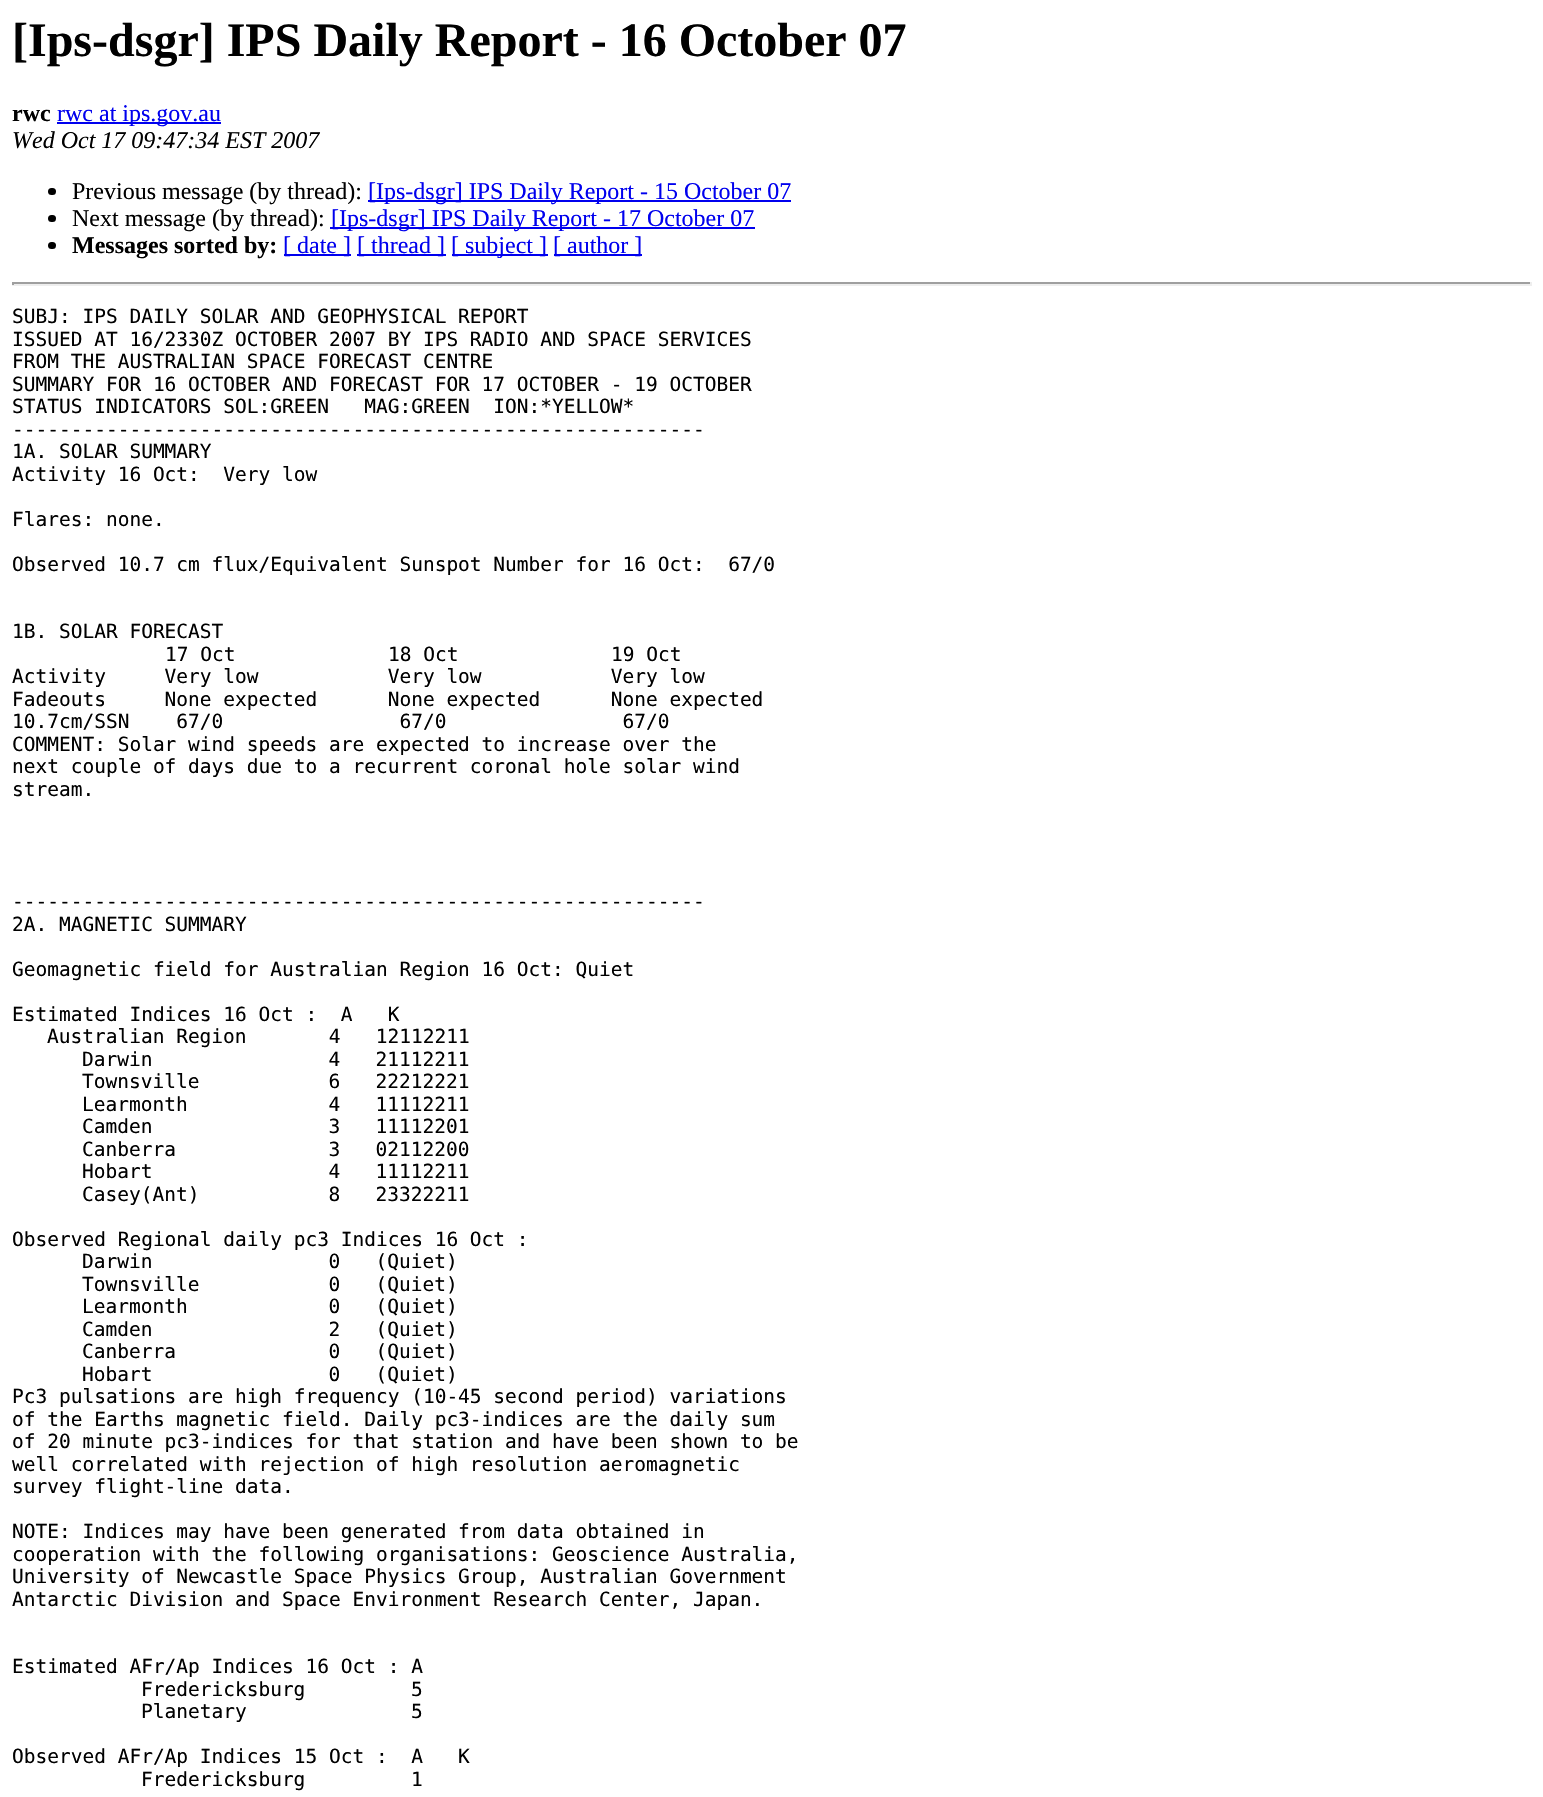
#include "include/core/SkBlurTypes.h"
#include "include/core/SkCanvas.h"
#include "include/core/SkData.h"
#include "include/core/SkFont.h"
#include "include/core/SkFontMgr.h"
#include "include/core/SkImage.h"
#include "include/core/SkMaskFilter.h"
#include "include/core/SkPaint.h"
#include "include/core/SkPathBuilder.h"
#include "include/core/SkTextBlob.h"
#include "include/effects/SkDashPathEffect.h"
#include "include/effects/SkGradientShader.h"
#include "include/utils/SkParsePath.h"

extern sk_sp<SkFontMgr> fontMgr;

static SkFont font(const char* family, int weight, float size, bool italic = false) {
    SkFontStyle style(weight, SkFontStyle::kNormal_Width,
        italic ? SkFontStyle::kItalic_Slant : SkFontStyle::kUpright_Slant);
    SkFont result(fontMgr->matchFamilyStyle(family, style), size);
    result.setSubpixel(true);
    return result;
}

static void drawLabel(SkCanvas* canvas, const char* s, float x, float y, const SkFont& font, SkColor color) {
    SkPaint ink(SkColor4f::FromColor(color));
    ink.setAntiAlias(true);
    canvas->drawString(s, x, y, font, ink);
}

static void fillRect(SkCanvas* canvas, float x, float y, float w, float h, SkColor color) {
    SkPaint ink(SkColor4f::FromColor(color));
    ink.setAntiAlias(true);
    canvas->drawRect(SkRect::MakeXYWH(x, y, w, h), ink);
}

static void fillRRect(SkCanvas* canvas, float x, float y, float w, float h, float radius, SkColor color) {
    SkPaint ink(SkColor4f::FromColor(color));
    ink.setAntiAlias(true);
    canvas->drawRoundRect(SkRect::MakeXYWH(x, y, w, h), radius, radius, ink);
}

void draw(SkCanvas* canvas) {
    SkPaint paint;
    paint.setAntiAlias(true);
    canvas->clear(0xFFFFFFFF);
    SkFont font1 = font("Liberation Serif", 700, 48);
    drawLabel(canvas, "[Ips-dsgr] IPS Daily Report - 16 October 07", 12, 56, font1, 0xFF000000);
    SkFont font2 = font("Liberation Serif", 700, 24);
    drawLabel(canvas, "rwc", 12, 121, font2, 0xFF000000);
    fillRect(canvas, 57, 122, 164, 2, 0xFF0000EE);
    SkFont font3 = font("Liberation Serif", 400, 24);
    drawLabel(canvas, "rwc at ips.gov.au", 57, 121, font3, 0xFF0000EE);
    SkFont font4 = font("Liberation Serif", 400, 24, true);
    drawLabel(canvas, "Wed Oct 17 09:47:34 EST 2007", 12, 148, font4, 0xFF000000);
    fillRRect(canvas, 48, 188, 8, 7, 3.5f, 0xFF000000);
    drawLabel(canvas, "Previous message (by thread):", 72, 199, font3, 0xFF000000);
    fillRect(canvas, 368, 200, 423, 2, 0xFF0000EE);
    drawLabel(canvas, "[Ips-dsgr] IPS Daily Report - 15 October 07", 368, 199, font3, 0xFF0000EE);
    fillRRect(canvas, 48, 215, 8, 7, 3.5f, 0xFF000000);
    drawLabel(canvas, "Next message (by thread):", 72, 226, font3, 0xFF000000);
    fillRect(canvas, 330, 227, 425, 2, 0xFF0000EE);
    drawLabel(canvas, "[Ips-dsgr] IPS Daily Report - 17 October 07", 331, 226, font3, 0xFF0000EE);
    fillRRect(canvas, 48, 242, 8, 7, 3.5f, 0xFF000000);
    drawLabel(canvas, "Messages sorted by:", 72, 253, font2, 0xFF000000);
    fillRect(canvas, 284, 254, 67, 2, 0xFF0000EE);
    drawLabel(canvas, "[ date ]", 283, 253, font3, 0xFF0000EE);
    fillRect(canvas, 357, 254, 89, 2, 0xFF0000EE);
    drawLabel(canvas, "[ thread ]", 357, 253, font3, 0xFF0000EE);
    fillRect(canvas, 452, 254, 96, 2, 0xFF0000EE);
    drawLabel(canvas, "[ subject ]", 451, 253, font3, 0xFF0000EE);
    fillRect(canvas, 554, 254, 88, 2, 0xFF0000EE);
    drawLabel(canvas, "[ author ]", 553, 253, font3, 0xFF0000EE);
    fillRect(canvas, 12, 282, 1520, 2, 0xFF9F9F9F);
    fillRect(canvas, 1530, 282, 2, 3, 0xFFEEEEEE);
    fillRect(canvas, 12, 284, 1520, 2, 0xFFEEEEEE);
    fillRect(canvas, 12, 282, 2, 3, 0xFF9F9F9F);
    SkFont font5 = font("DejaVu Sans Mono", 400, 19.5f);
    drawLabel(canvas, "SUBJ: IPS DAILY SOLAR AND GEOPHYSICAL REPORT", 12, 323, font5, 0xFF000000);
    drawLabel(canvas, "ISSUED AT 16/2330Z OCTOBER 2007 BY IPS RADIO AND SPACE SERVICES", 12, 346, font5, 0xFF000000);
    drawLabel(canvas, "FROM THE AUSTRALIAN SPACE FORECAST CENTRE", 12, 368, font5, 0xFF000000);
    drawLabel(canvas, "SUMMARY FOR 16 OCTOBER AND FORECAST FOR 17 OCTOBER - 19 OCTOBER", 12, 391, font5, 0xFF000000);
    drawLabel(canvas, "STATUS INDICATORS SOL:GREEN   MAG:GREEN  ION:*YELLOW*", 12, 413, font5, 0xFF000000);
    drawLabel(canvas, "-----------------------------------------------------------", 12, 436, font5, 0xFF000000);
    drawLabel(canvas, "1A. SOLAR SUMMARY", 12, 458, font5, 0xFF000000);
    drawLabel(canvas, "Activity 16 Oct:  Very low", 12, 481, font5, 0xFF000000);
    drawLabel(canvas, "Flares: none.", 12, 526, font5, 0xFF000000);
    drawLabel(canvas, "Observed 10.7 cm flux/Equivalent Sunspot Number for 16 Oct:  67/0", 12, 571, font5, 0xFF000000);
    drawLabel(canvas, "1B. SOLAR FORECAST", 12, 638, font5, 0xFF000000);
    drawLabel(canvas, "17 Oct             18 Oct             19 Oct", 165, 661, font5, 0xFF000000);
    drawLabel(canvas, "Activity     Very low           Very low           Very low", 12, 683, font5, 0xFF000000);
    drawLabel(canvas, "Fadeouts     None expected      None expected      None expected", 12, 706, font5, 0xFF000000);
    drawLabel(canvas, "10.7cm/SSN    67/0               67/0               67/0", 12, 728, font5, 0xFF000000);
    drawLabel(canvas, "COMMENT: Solar wind speeds are expected to increase over the", 12, 751, font5, 0xFF000000);
    drawLabel(canvas, "next couple of days due to a recurrent coronal hole solar wind", 12, 773, font5, 0xFF000000);
    drawLabel(canvas, "stream.", 12, 796, font5, 0xFF000000);
    drawLabel(canvas, "-----------------------------------------------------------", 12, 908, font5, 0xFF000000);
    drawLabel(canvas, "2A. MAGNETIC SUMMARY", 12, 931, font5, 0xFF000000);
    drawLabel(canvas, "Geomagnetic field for Australian Region 16 Oct: Quiet", 12, 976, font5, 0xFF000000);
    drawLabel(canvas, "Estimated Indices 16 Oct :  A   K", 12, 1021, font5, 0xFF000000);
    drawLabel(canvas, "Australian Region       4   12112211", 47, 1043, font5, 0xFF000000);
    drawLabel(canvas, "Darwin               4   21112211", 82, 1066, font5, 0xFF000000);
    drawLabel(canvas, "Townsville           6   22212221", 82, 1088, font5, 0xFF000000);
    drawLabel(canvas, "Learmonth            4   11112211", 82, 1111, font5, 0xFF000000);
    drawLabel(canvas, "Camden               3   11112201", 82, 1133, font5, 0xFF000000);
    drawLabel(canvas, "Canberra             3   02112200", 82, 1156, font5, 0xFF000000);
    drawLabel(canvas, "Hobart               4   11112211", 82, 1178, font5, 0xFF000000);
    drawLabel(canvas, "Casey(Ant)           8   23322211", 82, 1201, font5, 0xFF000000);
    drawLabel(canvas, "Observed Regional daily pc3 Indices 16 Oct :", 12, 1246, font5, 0xFF000000);
    drawLabel(canvas, "Darwin               0   (Quiet)", 82, 1268, font5, 0xFF000000);
    drawLabel(canvas, "Townsville           0   (Quiet)", 82, 1291, font5, 0xFF000000);
    drawLabel(canvas, "Learmonth            0   (Quiet)", 82, 1313, font5, 0xFF000000);
    drawLabel(canvas, "Camden               2   (Quiet)", 82, 1336, font5, 0xFF000000);
    drawLabel(canvas, "Canberra             0   (Quiet)", 82, 1358, font5, 0xFF000000);
    drawLabel(canvas, "Hobart               0   (Quiet)", 82, 1381, font5, 0xFF000000);
    drawLabel(canvas, "Pc3 pulsations are high frequency (10-45 second period) variations", 12, 1403, font5, 0xFF000000);
    drawLabel(canvas, "of the Earths magnetic field. Daily pc3-indices are the daily sum", 12, 1426, font5, 0xFF000000);
    drawLabel(canvas, "of 20 minute pc3-indices for that station and have been shown to be", 12, 1448, font5, 0xFF000000);
    drawLabel(canvas, "well correlated with rejection of high resolution aeromagnetic", 12, 1471, font5, 0xFF000000);
    drawLabel(canvas, "survey flight-line data.", 12, 1493, font5, 0xFF000000);
    drawLabel(canvas, "NOTE: Indices may have been generated from data obtained in", 12, 1538, font5, 0xFF000000);
    drawLabel(canvas, "cooperation with the following organisations: Geoscience Australia,", 12, 1561, font5, 0xFF000000);
    drawLabel(canvas, "University of Newcastle Space Physics Group, Australian Government", 12, 1583, font5, 0xFF000000);
    drawLabel(canvas, "Antarctic Division and Space Environment Research Center, Japan.", 12, 1606, font5, 0xFF000000);
    drawLabel(canvas, "Estimated AFr/Ap Indices 16 Oct : A", 12, 1673, font5, 0xFF000000);
    drawLabel(canvas, "Fredericksburg         5", 141, 1696, font5, 0xFF000000);
    drawLabel(canvas, "Planetary              5", 141, 1718, font5, 0xFF000000);
    drawLabel(canvas, "Observed AFr/Ap Indices 15 Oct :  A   K", 12, 1763, font5, 0xFF000000);
    drawLabel(canvas, "Fredericksburg         1", 141, 1786, font5, 0xFF000000);
}
